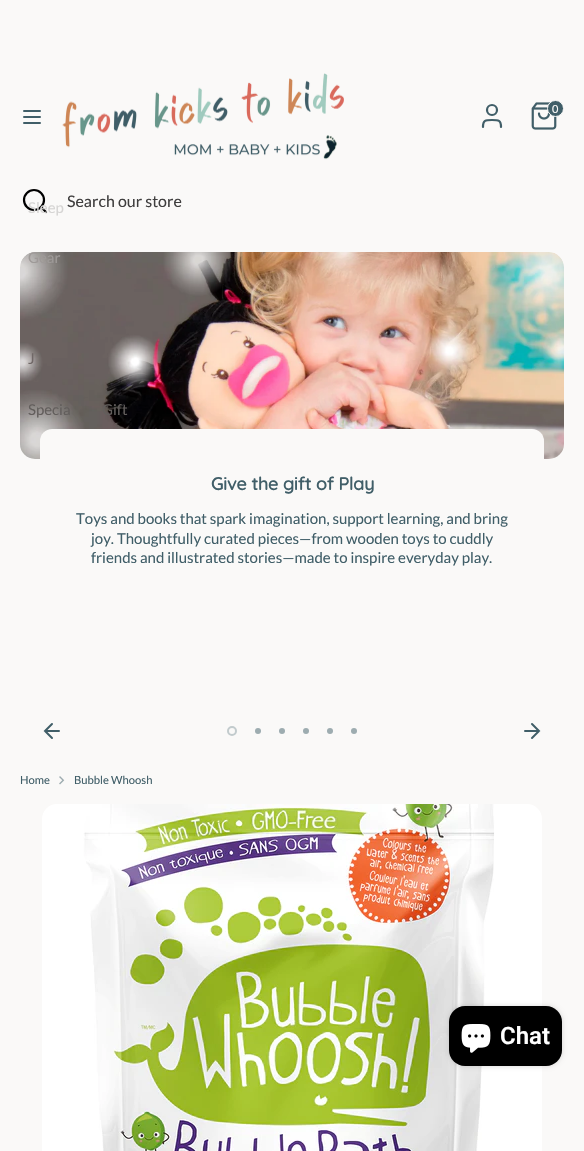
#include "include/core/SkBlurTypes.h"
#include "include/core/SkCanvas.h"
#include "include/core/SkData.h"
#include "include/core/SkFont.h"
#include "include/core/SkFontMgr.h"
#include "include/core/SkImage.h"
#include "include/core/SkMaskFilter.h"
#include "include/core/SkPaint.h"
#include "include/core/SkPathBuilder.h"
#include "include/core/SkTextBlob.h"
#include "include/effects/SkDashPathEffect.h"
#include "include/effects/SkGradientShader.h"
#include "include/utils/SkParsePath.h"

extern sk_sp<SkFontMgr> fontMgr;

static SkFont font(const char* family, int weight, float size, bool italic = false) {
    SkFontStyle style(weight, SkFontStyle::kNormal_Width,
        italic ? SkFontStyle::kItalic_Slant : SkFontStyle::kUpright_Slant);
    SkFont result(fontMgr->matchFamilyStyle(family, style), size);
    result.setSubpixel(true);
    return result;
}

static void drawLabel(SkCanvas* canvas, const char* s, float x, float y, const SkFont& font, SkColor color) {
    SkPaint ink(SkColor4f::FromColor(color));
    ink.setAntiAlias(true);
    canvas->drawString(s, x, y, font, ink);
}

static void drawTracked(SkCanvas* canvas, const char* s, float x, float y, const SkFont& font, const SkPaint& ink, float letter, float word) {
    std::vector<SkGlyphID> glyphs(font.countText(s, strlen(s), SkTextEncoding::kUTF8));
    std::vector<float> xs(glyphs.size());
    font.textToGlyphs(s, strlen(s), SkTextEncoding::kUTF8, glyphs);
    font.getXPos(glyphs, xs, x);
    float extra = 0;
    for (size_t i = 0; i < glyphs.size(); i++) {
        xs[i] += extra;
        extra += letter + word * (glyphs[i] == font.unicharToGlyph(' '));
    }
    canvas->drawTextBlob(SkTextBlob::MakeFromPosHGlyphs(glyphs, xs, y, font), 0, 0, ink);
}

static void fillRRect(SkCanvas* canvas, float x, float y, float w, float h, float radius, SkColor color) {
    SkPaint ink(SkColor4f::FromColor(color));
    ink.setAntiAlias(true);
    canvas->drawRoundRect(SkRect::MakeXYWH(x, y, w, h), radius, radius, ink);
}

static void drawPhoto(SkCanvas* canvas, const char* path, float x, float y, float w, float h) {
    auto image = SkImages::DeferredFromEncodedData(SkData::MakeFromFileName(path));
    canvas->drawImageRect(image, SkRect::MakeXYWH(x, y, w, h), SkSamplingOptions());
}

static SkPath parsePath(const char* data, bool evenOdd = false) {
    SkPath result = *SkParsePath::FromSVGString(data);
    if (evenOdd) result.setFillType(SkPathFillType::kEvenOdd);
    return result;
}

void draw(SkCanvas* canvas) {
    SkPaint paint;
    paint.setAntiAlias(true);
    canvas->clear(0xFFFAF9F8);
    paint.setStroke(true);
    paint.setStrokeWidth(2);
    paint.setStrokeCap(SkPaint::kRound_Cap);
    paint.setStrokeJoin(SkPaint::kRound_Join);
    paint.setColor(0xFF405E68);
    canvas->drawPath(parsePath("M24 117H40M24 111H40M24 123H40"), paint);
    drawPhoto(canvas, "assets/img1.png", 62, 73, 282, 87);
    paint.setStrokeWidth(2.2f);
    canvas->drawPath(parsePath("M501 127C501 120 498.5 120 492 120C485.5 120 483 120 483 127"), paint);
    paint.setStrokeCap(SkPaint::kButt_Cap);
    paint.setStrokeJoin(SkPaint::kMiter_Join);
    canvas->drawCircle(492, 110, 5, paint);
    drawPhoto(canvas, "assets/img2.png", 531, 102, 26, 28);
    paint.setStroke(false);
    canvas->drawCircle(555.5f, 108.5f, 8, paint);
    paint.setStroke(true);
    paint.setStrokeWidth(1);
    paint.setColor(0xFFFAF9F8);
    canvas->drawCircle(555.5f, 108.5f, 8, paint);
    SkFont font1 = font("Lato", 400, 11);
    drawLabel(canvas, "0", 552, 113, font1, 0xFFFAF9F8);
    paint.setStrokeWidth(2.2f);
    paint.setColor(0xFF000000);
    canvas->drawCircle(34, 200, 10, paint);
    paint.setStrokeCap(SkPaint::kRound_Cap);
    paint.setStrokeJoin(SkPaint::kRound_Join);
    canvas->drawPath(parsePath("M46 212L41 207"), paint);
    SkFont font2 = font("Lato", 400, 16);
    drawLabel(canvas, "Search our store", 67, 207, font2, 0xFF3F3E3E);
    SkFont font3 = font("Lato", 400, 15);
    drawLabel(canvas, "Sleep", 28, 213, font3, 0xFFD6D5D4);
    drawPhoto(canvas, "assets/img3.png", 20, 252, 544, 207);
    drawLabel(canvas, "Gear", 28, 263, font3, 0xFF9E9A98);
    drawLabel(canvas, "J", 28, 364, font3, 0xFF706867);
    drawLabel(canvas, "Specia", 28, 415, font3, 0xFF625E5C);
    drawLabel(canvas, "Gift", 102, 415, font3, 0xFF625E5C);
    fillRRect(canvas, 40, 429, 504, 184, 12, 0xFFFAF9F8);
    SkFont font4 = font("Quicksand", 600, 18.25f);
    paint.setStroke(false);
    paint.setColor(0xFF405E68);
    drawTracked(canvas, "Give the gift of Play", 211, 490, font4, paint, -0.45f, 0);
    drawLabel(canvas, "Toys and books that spark imagination, support learning, and bring", 76, 524, font3, 0xFF405E68);
    drawLabel(canvas, "joy. Thoughtfully curated pieces—from wooden toys to cuddly", 91, 544, font3, 0xFF405E68);
    drawLabel(canvas, "friends and illustrated stories—made to inspire everyday play.", 91, 563, font3, 0xFF405E68);
    paint.setStroke(true);
    paint.setStrokeWidth(2);
    paint.setStrokeCap(SkPaint::kButt_Cap);
    paint.setStrokeJoin(SkPaint::kMiter_Join);
    paint.setColor(0xFFC2CBCD);
    canvas->drawCircle(232, 731, 4, paint);
    paint.setStroke(false);
    paint.setColor(0xFF9DACB0);
    canvas->drawCircle(258, 731, 3, paint);
    canvas->drawCircle(282, 731, 3, paint);
    canvas->drawCircle(306, 731, 3, paint);
    canvas->drawCircle(330, 731, 3, paint);
    canvas->drawCircle(354, 731, 3, paint);
    paint.setStroke(true);
    paint.setStrokeCap(SkPaint::kRound_Cap);
    paint.setColor(0xFF405E68);
    canvas->drawPath(parsePath("M59 731H45M52 738L45 731L52 724"), paint);
    canvas->drawPath(parsePath("M525 731H539M532 724L539 731L532 738"), paint);
    SkFont font5 = font("Lato", 400, 11.25f);
    drawLabel(canvas, "Home", 20, 784, font5, 0xFF405E68);
    drawPhoto(canvas, "assets/img4.png", 59, 776, 6, 9);
    drawLabel(canvas, "Bubble Whoosh", 74, 784, font5, 0xFF405E68);
    drawPhoto(canvas, "assets/img5.png", 42, 804, 500, 347);
    paint.setStroke(false);
    paint.setColor(0x26000000);
    paint.setMaskFilter(SkMaskFilter::MakeBlur(kNormal_SkBlurStyle, 2.5f));
    canvas->drawRoundRect(SkRect::MakeXYWH(449, 1006, 113, 60), 16, 16, paint);
    paint.setMaskFilter(nullptr);
    fillRRect(canvas, 449, 1006, 113, 60, 16, 0xFF000000);
    drawPhoto(canvas, "assets/img6.png", 461, 1024, 30, 29);
    SkFont font6 = font("Roboto", 600, 24);
    drawLabel(canvas, "Chat", 500, 1044, font6, 0xFFFFFFFF);
}
